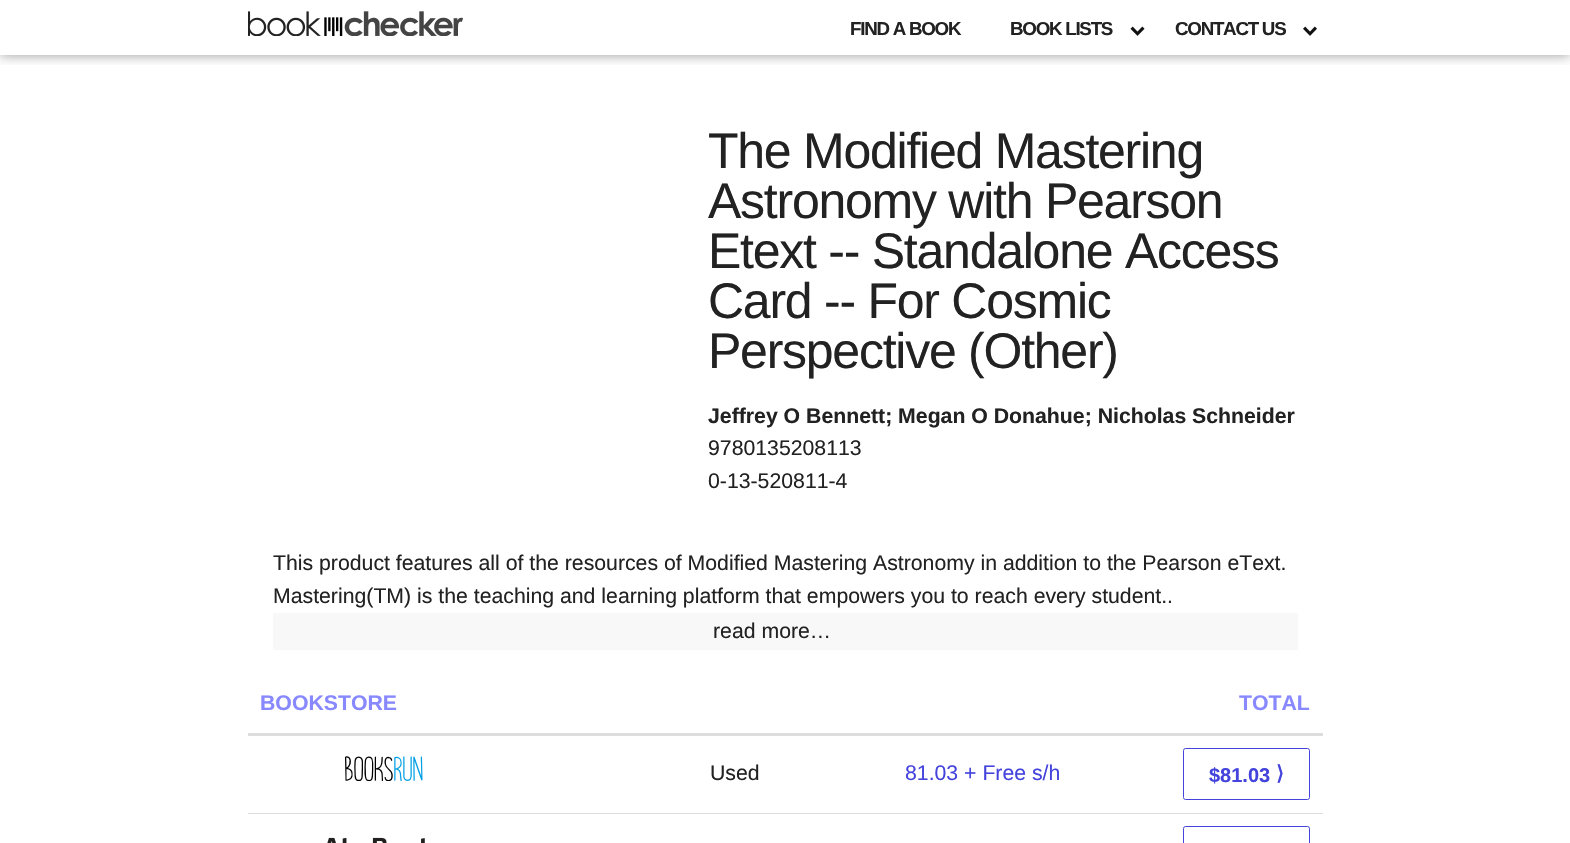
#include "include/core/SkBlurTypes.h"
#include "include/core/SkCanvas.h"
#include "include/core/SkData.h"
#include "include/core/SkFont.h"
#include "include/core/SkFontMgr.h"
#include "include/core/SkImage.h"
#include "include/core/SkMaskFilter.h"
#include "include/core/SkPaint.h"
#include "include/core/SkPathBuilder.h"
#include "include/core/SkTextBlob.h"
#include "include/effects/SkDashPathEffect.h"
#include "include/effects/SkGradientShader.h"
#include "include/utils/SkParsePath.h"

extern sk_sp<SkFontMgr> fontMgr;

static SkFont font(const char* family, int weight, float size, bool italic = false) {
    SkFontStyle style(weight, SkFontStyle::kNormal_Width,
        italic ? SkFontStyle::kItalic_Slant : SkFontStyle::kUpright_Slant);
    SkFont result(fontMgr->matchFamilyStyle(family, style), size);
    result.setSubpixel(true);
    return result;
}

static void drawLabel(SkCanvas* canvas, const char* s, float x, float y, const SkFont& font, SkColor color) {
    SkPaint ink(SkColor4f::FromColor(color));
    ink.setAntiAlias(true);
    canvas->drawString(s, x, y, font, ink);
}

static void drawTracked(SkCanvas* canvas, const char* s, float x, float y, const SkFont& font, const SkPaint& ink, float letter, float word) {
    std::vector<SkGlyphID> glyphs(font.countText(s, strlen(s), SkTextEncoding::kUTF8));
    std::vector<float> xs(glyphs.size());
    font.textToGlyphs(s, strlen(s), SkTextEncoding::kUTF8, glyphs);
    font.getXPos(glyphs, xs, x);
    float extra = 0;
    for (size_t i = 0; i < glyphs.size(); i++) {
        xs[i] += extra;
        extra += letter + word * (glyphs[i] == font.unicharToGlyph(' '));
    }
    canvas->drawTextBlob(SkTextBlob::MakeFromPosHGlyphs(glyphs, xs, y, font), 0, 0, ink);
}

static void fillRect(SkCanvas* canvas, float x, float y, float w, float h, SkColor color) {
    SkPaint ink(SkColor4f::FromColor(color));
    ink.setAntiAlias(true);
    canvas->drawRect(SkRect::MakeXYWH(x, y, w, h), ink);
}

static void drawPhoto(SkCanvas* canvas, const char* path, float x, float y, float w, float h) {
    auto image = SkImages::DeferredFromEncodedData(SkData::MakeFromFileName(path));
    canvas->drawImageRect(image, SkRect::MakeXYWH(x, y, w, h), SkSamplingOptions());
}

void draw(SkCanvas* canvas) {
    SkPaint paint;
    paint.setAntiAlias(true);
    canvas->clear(0xFFFFFFFF);
    canvas->save();
    canvas->clipRect(SkRect::MakeXYWH(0, 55, 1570, 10));
    paint.setColor(0x66000000);
    paint.setMaskFilter(SkMaskFilter::MakeBlur(kNormal_SkBlurStyle, 6));
    canvas->drawRect(SkRect::MakeXYWH(0, 0, 1570, 55), paint);
    paint.setMaskFilter(nullptr);
    canvas->restore();
    drawPhoto(canvas, "assets/img1.png", 248, 11, 215, 25);
    SkFont font1 = font("Liberation Sans", 700, 18.75f);
    paint.setColor(0xFF222222);
    drawTracked(canvas, "FIND A BOOK", 850, 35, font1, paint, -1.25f, 0);
    drawPhoto(canvas, "assets/img2.png", 1130, 26, 15, 10);
    drawTracked(canvas, "BOOK LISTS", 1010, 35, font1, paint, -1.25f, 0);
    drawPhoto(canvas, "assets/img3.png", 1303, 26, 14, 10);
    drawTracked(canvas, "CONTACT US", 1175, 35, font1, paint, -1.25f, 0);
    SkFont font2 = font("Liberation Sans", 400, 50);
    drawTracked(canvas, "The Modified Mastering", 708, 168, font2, paint, -1.25f, 0);
    drawTracked(canvas, "Astronomy with Pearson", 708, 218, font2, paint, -1.25f, 0);
    drawTracked(canvas, "Etext -- Standalone Access", 708, 268, font2, paint, -1.25f, 0);
    drawTracked(canvas, "Card -- For Cosmic", 708, 318, font2, paint, -1.25f, 0);
    drawTracked(canvas, "Perspective (Other)", 708, 368, font2, paint, -1.25f, 0);
    SkFont font3 = font("Liberation Sans", 700, 21.25f);
    drawLabel(canvas, "Jeffrey O Bennett; Megan O Donahue; Nicholas Schneider", 708, 423, font3, 0xFF222222);
    SkFont font4 = font("Liberation Sans", 400, 21.25f);
    drawLabel(canvas, "9780135208113", 708, 455, font4, 0xFF222222);
    drawLabel(canvas, "0-13-520811-4", 708, 488, font4, 0xFF222222);
    drawLabel(canvas, "This product features all of the resources of Modified Mastering Astronomy in addition to the Pearson eText.", 273, 570, font4, 0xFF222222);
    drawLabel(canvas, "Mastering(TM) is the teaching and learning platform that empowers you to reach every student..", 273, 603, font4, 0xFF222222);
    fillRect(canvas, 273, 613, 1025, 37, 0xFFF8F8F8);
    drawLabel(canvas, "read more…", 713, 638, font4, 0xFF222222);
    drawLabel(canvas, "BOOKSTORE", 260, 710, font3, 0xFF8888FF);
    fillRect(canvas, 248, 733, 1075, 3, 0xFFDDDDDD);
    drawLabel(canvas, "TOTAL", 1239, 710, font3, 0xFF8888FF);
    drawPhoto(canvas, "assets/img4.png", 345, 756, 78, 25);
    drawLabel(canvas, "Used", 710, 780, font4, 0xFF222222);
    drawLabel(canvas, "81.03 + Free s/h", 905, 780, font4, 0xFF4444DD);
    fillRect(canvas, 248, 813, 1075, 1, 0xFFDDDDDD);
    paint.setStroke(true);
    paint.setStrokeWidth(1);
    paint.setColor(0xFF4444DD);
    canvas->drawRoundRect(SkRect::MakeXYWH(1183.5f, 748.5f, 126, 51), 2, 2, paint);
    SkFont font5 = font("Liberation Sans", 700, 20);
    drawLabel(canvas, "$81.03", 1209, 782, font5, 0xFF4444DD);
    SkFont font6 = font("DejaVu Sans", 700, 20);
    drawLabel(canvas, "⟩", 1276, 780, font6, 0xFF4444DD);
    drawPhoto(canvas, "assets/img5.png", 327, 837, 98, 6);
    canvas->drawRoundRect(SkRect::MakeXYWH(1183.5f, 826.5f, 126, 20), 2, 2, paint);
}
